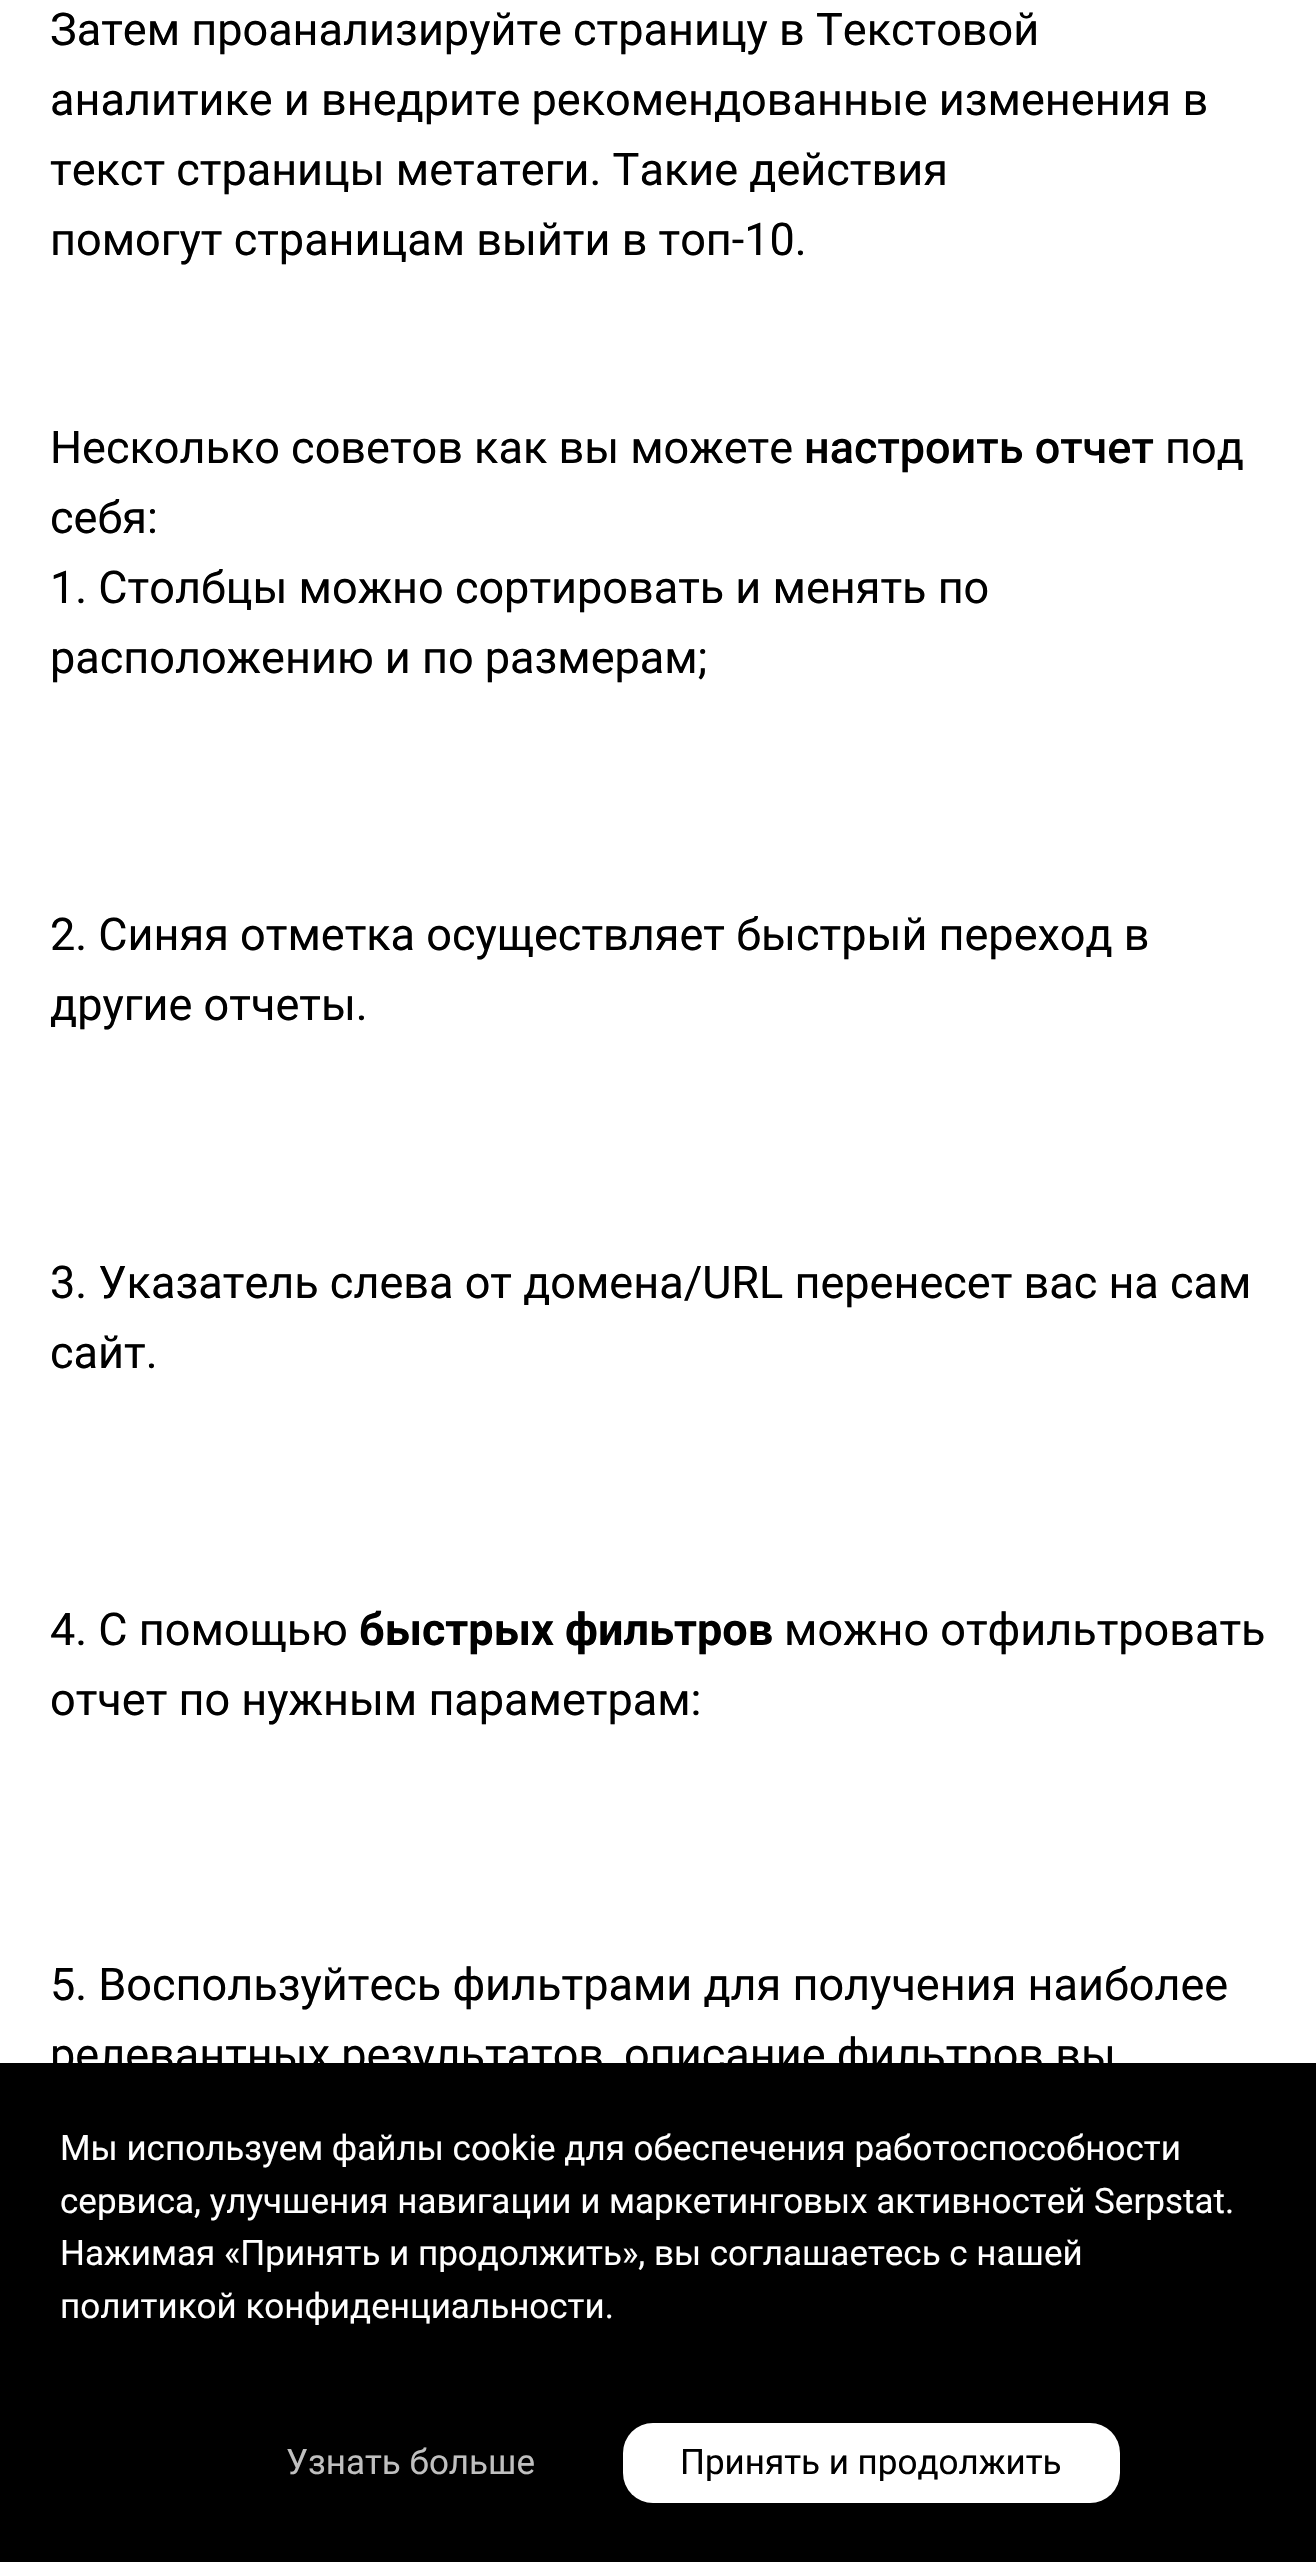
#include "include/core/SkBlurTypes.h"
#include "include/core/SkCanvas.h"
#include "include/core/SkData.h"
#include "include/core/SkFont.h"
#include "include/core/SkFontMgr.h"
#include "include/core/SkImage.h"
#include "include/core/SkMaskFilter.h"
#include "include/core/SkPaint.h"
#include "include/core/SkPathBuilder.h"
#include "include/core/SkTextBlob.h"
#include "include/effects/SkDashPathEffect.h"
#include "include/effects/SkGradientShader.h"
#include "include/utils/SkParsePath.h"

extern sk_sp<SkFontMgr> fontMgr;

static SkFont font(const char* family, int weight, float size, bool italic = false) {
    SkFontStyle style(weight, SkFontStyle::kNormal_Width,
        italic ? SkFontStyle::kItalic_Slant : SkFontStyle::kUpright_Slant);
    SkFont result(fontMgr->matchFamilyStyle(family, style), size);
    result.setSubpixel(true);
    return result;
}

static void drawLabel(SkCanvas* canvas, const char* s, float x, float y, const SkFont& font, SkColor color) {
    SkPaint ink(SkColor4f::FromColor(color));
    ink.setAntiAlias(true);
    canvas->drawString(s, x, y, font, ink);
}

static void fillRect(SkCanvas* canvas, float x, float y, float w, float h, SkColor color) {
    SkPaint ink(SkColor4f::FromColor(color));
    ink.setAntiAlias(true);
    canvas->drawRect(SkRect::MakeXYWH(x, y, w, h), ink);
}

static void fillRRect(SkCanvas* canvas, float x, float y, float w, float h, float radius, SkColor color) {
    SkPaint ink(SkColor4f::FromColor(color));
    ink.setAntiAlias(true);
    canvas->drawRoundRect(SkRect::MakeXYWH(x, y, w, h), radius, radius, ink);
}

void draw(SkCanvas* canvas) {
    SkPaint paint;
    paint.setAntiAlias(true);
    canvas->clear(0xFFFFFFFF);
    SkFont font1 = font("Roboto", 400, 45);
    drawLabel(canvas, "Затем проанализируйте страницу в Текстовой", 50, 45, font1, 0xFF000000);
    drawLabel(canvas, "аналитике и внедрите рекомендованные изменения в", 50, 115, font1, 0xFF000000);
    drawLabel(canvas, "текст страницы метатеги. Такие действия", 50, 185, font1, 0xFF000000);
    drawLabel(canvas, "помогут страницам выйти в топ-10.", 50, 255, font1, 0xFF000000);
    drawLabel(canvas, "Несколько советов как вы можете", 50, 463, font1, 0xFF000000);
    SkFont font2 = font("Roboto", 500, 45);
    drawLabel(canvas, "настроить отчет", 804, 463, font2, 0xFF000000);
    drawLabel(canvas, "под", 1165, 463, font1, 0xFF000000);
    drawLabel(canvas, "себя:", 50, 533, font1, 0xFF000000);
    drawLabel(canvas, "1. Столбцы можно сортировать и менять по", 50, 603, font1, 0xFF000000);
    drawLabel(canvas, "расположению и по размерам;", 50, 673, font1, 0xFF000000);
    drawLabel(canvas, "2. Синяя отметка осуществляет быстрый переход в", 50, 950, font1, 0xFF000000);
    drawLabel(canvas, "другие отчеты.", 50, 1020, font1, 0xFF000000);
    drawLabel(canvas, "3. Указатель слева от домена/URL перенесет вас на сам", 50, 1298, font1, 0xFF000000);
    drawLabel(canvas, "сайт.", 50, 1368, font1, 0xFF000000);
    drawLabel(canvas, "4. С помощью", 50, 1645, font1, 0xFF000000);
    SkFont font3 = font("Roboto", 700, 45);
    drawLabel(canvas, "быстрых фильтров", 359, 1645, font3, 0xFF000000);
    drawLabel(canvas, "можно отфильтровать", 784, 1645, font1, 0xFF000000);
    drawLabel(canvas, "отчет по нужным параметрам:", 50, 1715, font1, 0xFF000000);
    drawLabel(canvas, "5. Воспользуйтесь фильтрами для получения наиболее", 50, 2000, font1, 0xFF000000);
    drawLabel(canvas, "релевантных результатов, описание фильтров вы", 50, 2070, font1, 0xFF000000);
    fillRect(canvas, 0, 2063, 1316, 499, 0xFF000000);
    SkFont font4 = font("Roboto", 400, 35);
    drawLabel(canvas, "Мы используем файлы cookie для обеспечения работоспособности", 60, 2160, font4, 0xFFFFFFFF);
    drawLabel(canvas, "сервиса, улучшения навигации и маркетинговых активностей Serpstat.", 60, 2213, font4, 0xFFFFFFFF);
    drawLabel(canvas, "Нажимая «Принять и продолжить», вы соглашаетесь с нашей", 60, 2265, font4, 0xFFFFFFFF);
    drawLabel(canvas, "политикой конфиденциальности.", 60, 2318, font4, 0xFFFFFFFF);
    drawLabel(canvas, "Узнать больше", 286, 2474, font4, 0xFFBFBFBF);
    fillRRect(canvas, 623, 2423, 497, 80, 30, 0xFFFFFFFF);
    drawLabel(canvas, "Принять и продолжить", 680, 2474, font4, 0xFF000000);
}
